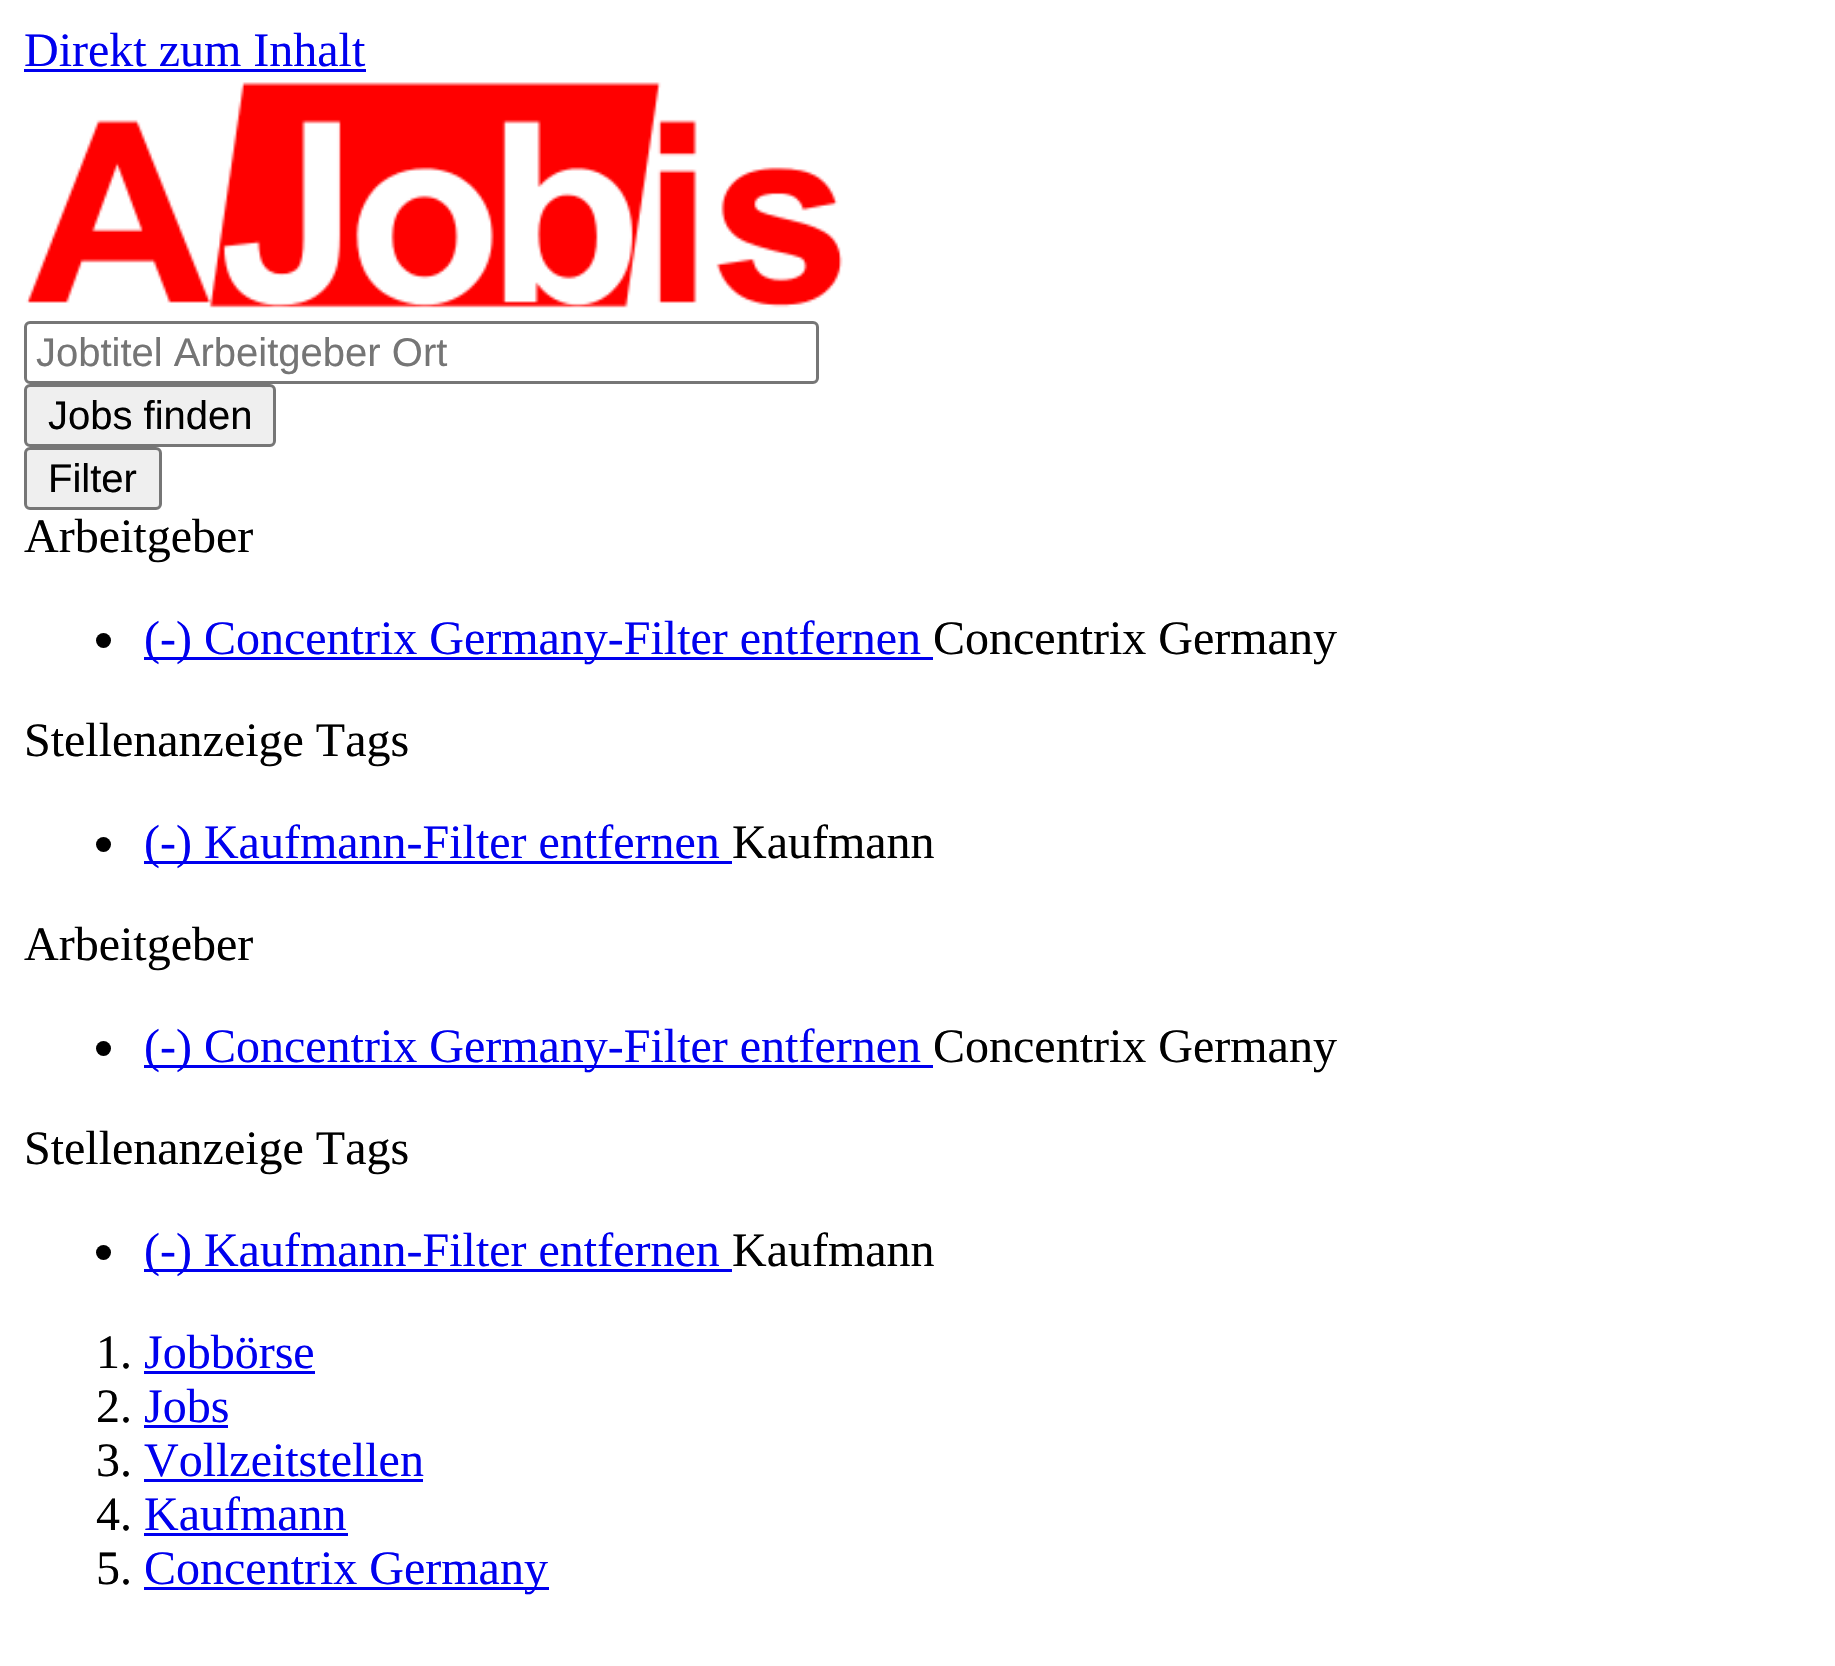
#include "include/core/SkBlurTypes.h"
#include "include/core/SkCanvas.h"
#include "include/core/SkData.h"
#include "include/core/SkFont.h"
#include "include/core/SkFontMgr.h"
#include "include/core/SkImage.h"
#include "include/core/SkMaskFilter.h"
#include "include/core/SkPaint.h"
#include "include/core/SkPathBuilder.h"
#include "include/core/SkTextBlob.h"
#include "include/effects/SkDashPathEffect.h"
#include "include/effects/SkGradientShader.h"
#include "include/utils/SkParsePath.h"

extern sk_sp<SkFontMgr> fontMgr;

static SkFont font(const char* family, int weight, float size, bool italic = false) {
    SkFontStyle style(weight, SkFontStyle::kNormal_Width,
        italic ? SkFontStyle::kItalic_Slant : SkFontStyle::kUpright_Slant);
    SkFont result(fontMgr->matchFamilyStyle(family, style), size);
    result.setSubpixel(true);
    return result;
}

static void drawLabel(SkCanvas* canvas, const char* s, float x, float y, const SkFont& font, SkColor color) {
    SkPaint ink(SkColor4f::FromColor(color));
    ink.setAntiAlias(true);
    canvas->drawString(s, x, y, font, ink);
}

static void fillRect(SkCanvas* canvas, float x, float y, float w, float h, SkColor color) {
    SkPaint ink(SkColor4f::FromColor(color));
    ink.setAntiAlias(true);
    canvas->drawRect(SkRect::MakeXYWH(x, y, w, h), ink);
}

static void drawPhoto(SkCanvas* canvas, const char* path, float x, float y, float w, float h) {
    auto image = SkImages::DeferredFromEncodedData(SkData::MakeFromFileName(path));
    canvas->drawImageRect(image, SkRect::MakeXYWH(x, y, w, h), SkSamplingOptions());
}

void draw(SkCanvas* canvas) {
    SkPaint paint;
    paint.setAntiAlias(true);
    canvas->clear(0xFFFFFFFF);
    SkFont font1 = font("Liberation Serif", 400, 48);
    drawLabel(canvas, "Direkt zum Inhalt", 24, 66, font1, 0xFF0000EE);
    fillRect(canvas, 24, 69, 342, 3, 0xFF0000EE);
    drawPhoto(canvas, "assets/img1.png", 26, 82, 817, 226);
    paint.setStroke(true);
    paint.setStrokeWidth(3);
    paint.setColor(0xFF767676);
    canvas->drawRoundRect(SkRect::MakeXYWH(25.5f, 322.5f, 792, 60), 4.5f, 4.5f, paint);
    SkFont font2 = font("Liberation Sans", 400, 40);
    drawLabel(canvas, "Jobtitel Arbeitgeber Ort", 36, 366, font2, 0xFF757575);
    paint.setStroke(false);
    paint.setColor(0xFFEFEFEF);
    canvas->drawRoundRect(SkRect::MakeXYWH(25.5f, 385.5f, 249, 60), 4.5f, 4.5f, paint);
    paint.setStroke(true);
    paint.setColor(0xFF767676);
    canvas->drawRoundRect(SkRect::MakeXYWH(25.5f, 385.5f, 249, 60), 4.5f, 4.5f, paint);
    drawLabel(canvas, "Jobs finden", 48, 429, font2, 0xFF000000);
    paint.setStroke(false);
    paint.setColor(0xFFEFEFEF);
    canvas->drawRoundRect(SkRect::MakeXYWH(25.5f, 448.5f, 135, 60), 4.5f, 4.5f, paint);
    paint.setStroke(true);
    paint.setColor(0xFF767676);
    canvas->drawRoundRect(SkRect::MakeXYWH(25.5f, 448.5f, 135, 60), 4.5f, 4.5f, paint);
    drawLabel(canvas, "Filter", 48, 492, font2, 0xFF000000);
    drawLabel(canvas, "Arbeitgeber", 24, 552, font1, 0xFF000000);
    paint.setStroke(false);
    paint.setColor(0xFF000000);
    canvas->drawCircle(103.5f, 640.5f, 7.5f, paint);
    fillRect(canvas, 144, 657, 789, 3, 0xFF0000EE);
    drawLabel(canvas, "(-) Concentrix Germany-Filter entfernen", 144, 654, font1, 0xFF0000EE);
    drawLabel(canvas, "Concentrix Germany", 933, 654, font1, 0xFF000000);
    drawLabel(canvas, "Stellenanzeige Tags", 24, 756, font1, 0xFF000000);
    canvas->drawCircle(103.5f, 844.5f, 7.5f, paint);
    fillRect(canvas, 144, 861, 588, 3, 0xFF0000EE);
    drawLabel(canvas, "(-) Kaufmann-Filter entfernen", 144, 858, font1, 0xFF0000EE);
    drawLabel(canvas, "Kaufmann", 732, 858, font1, 0xFF000000);
    drawLabel(canvas, "Arbeitgeber", 24, 960, font1, 0xFF000000);
    canvas->drawCircle(103.5f, 1048.5f, 7.5f, paint);
    fillRect(canvas, 144, 1065, 789, 3, 0xFF0000EE);
    drawLabel(canvas, "(-) Concentrix Germany-Filter entfernen", 144, 1062, font1, 0xFF0000EE);
    drawLabel(canvas, "Concentrix Germany", 933, 1062, font1, 0xFF000000);
    drawLabel(canvas, "Stellenanzeige Tags", 24, 1164, font1, 0xFF000000);
    canvas->drawCircle(103.5f, 1252.5f, 7.5f, paint);
    fillRect(canvas, 144, 1269, 588, 3, 0xFF0000EE);
    drawLabel(canvas, "(-) Kaufmann-Filter entfernen", 144, 1266, font1, 0xFF0000EE);
    drawLabel(canvas, "Kaufmann", 732, 1266, font1, 0xFF000000);
    drawLabel(canvas, "1.", 96, 1368, font1, 0xFF000000);
    drawLabel(canvas, "Jobbörse", 144, 1368, font1, 0xFF0000EE);
    fillRect(canvas, 144, 1371, 171, 3, 0xFF0000EE);
    drawLabel(canvas, "2.", 96, 1422, font1, 0xFF000000);
    drawLabel(canvas, "Jobs", 144, 1422, font1, 0xFF0000EE);
    fillRect(canvas, 144, 1425, 84, 3, 0xFF0000EE);
    drawLabel(canvas, "3.", 96, 1476, font1, 0xFF000000);
    drawLabel(canvas, "Vollzeitstellen", 144, 1476, font1, 0xFF0000EE);
    fillRect(canvas, 144, 1479, 279, 3, 0xFF0000EE);
    drawLabel(canvas, "4.", 96, 1530, font1, 0xFF000000);
    drawLabel(canvas, "Kaufmann", 144, 1530, font1, 0xFF0000EE);
    fillRect(canvas, 144, 1533, 204, 3, 0xFF0000EE);
    drawLabel(canvas, "5.", 96, 1584, font1, 0xFF000000);
    fillRect(canvas, 144, 1587, 405, 3, 0xFF0000EE);
    drawLabel(canvas, "Concentrix Germany", 144, 1584, font1, 0xFF0000EE);
}
